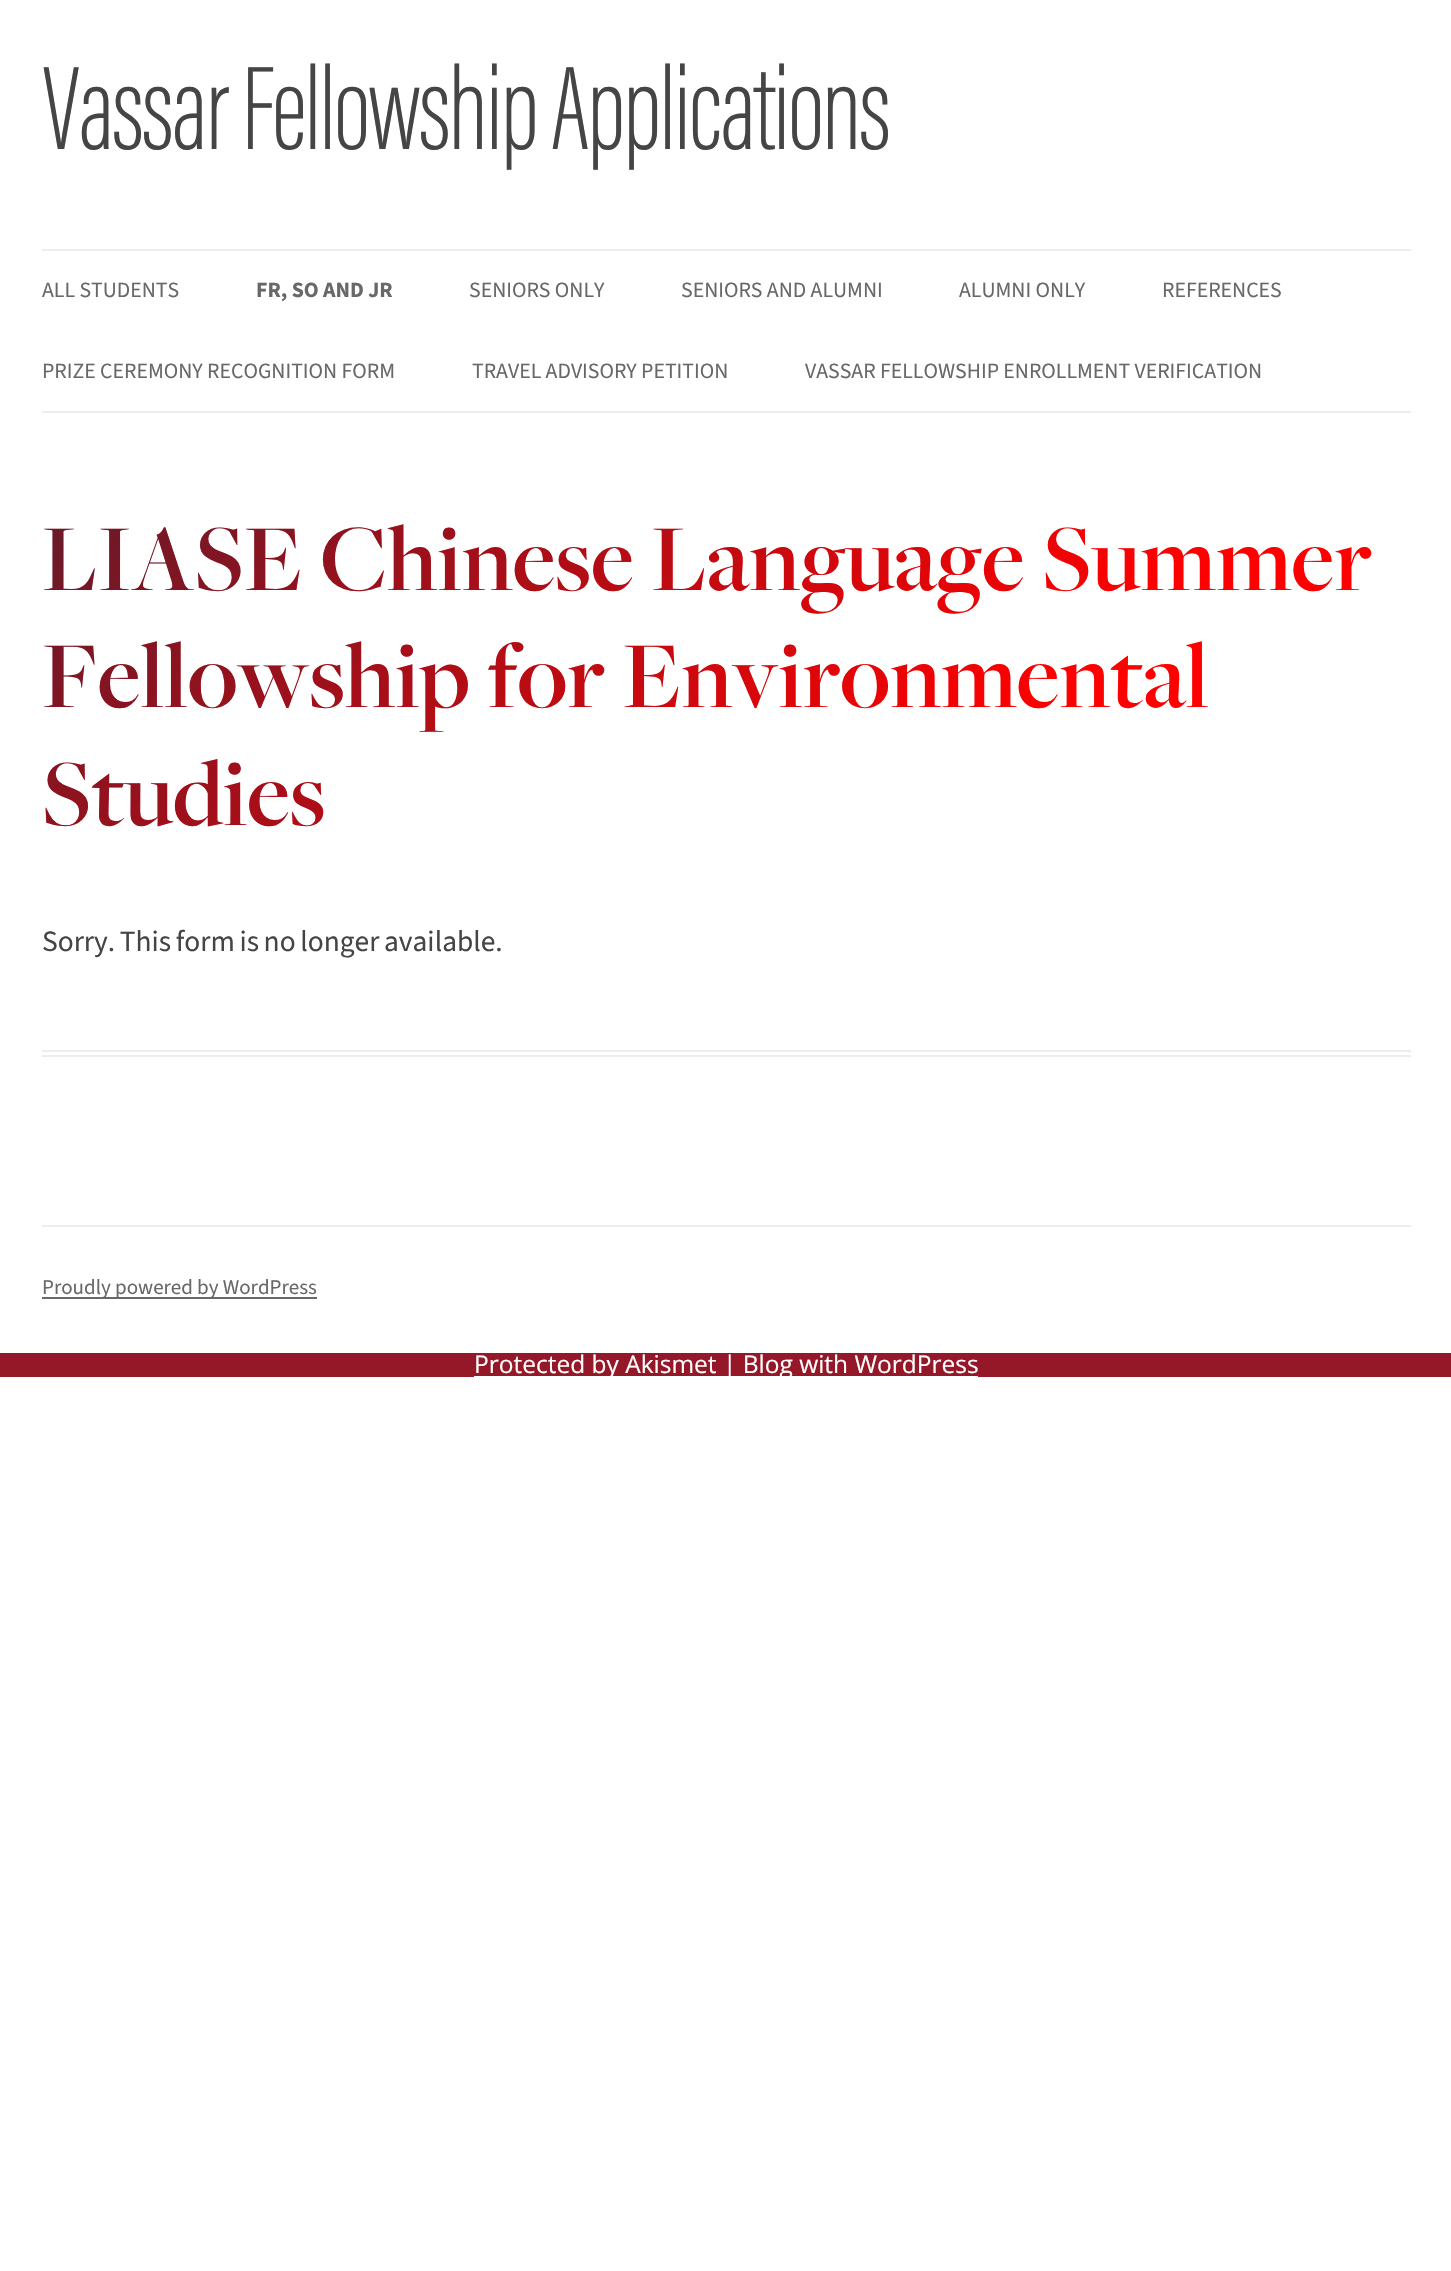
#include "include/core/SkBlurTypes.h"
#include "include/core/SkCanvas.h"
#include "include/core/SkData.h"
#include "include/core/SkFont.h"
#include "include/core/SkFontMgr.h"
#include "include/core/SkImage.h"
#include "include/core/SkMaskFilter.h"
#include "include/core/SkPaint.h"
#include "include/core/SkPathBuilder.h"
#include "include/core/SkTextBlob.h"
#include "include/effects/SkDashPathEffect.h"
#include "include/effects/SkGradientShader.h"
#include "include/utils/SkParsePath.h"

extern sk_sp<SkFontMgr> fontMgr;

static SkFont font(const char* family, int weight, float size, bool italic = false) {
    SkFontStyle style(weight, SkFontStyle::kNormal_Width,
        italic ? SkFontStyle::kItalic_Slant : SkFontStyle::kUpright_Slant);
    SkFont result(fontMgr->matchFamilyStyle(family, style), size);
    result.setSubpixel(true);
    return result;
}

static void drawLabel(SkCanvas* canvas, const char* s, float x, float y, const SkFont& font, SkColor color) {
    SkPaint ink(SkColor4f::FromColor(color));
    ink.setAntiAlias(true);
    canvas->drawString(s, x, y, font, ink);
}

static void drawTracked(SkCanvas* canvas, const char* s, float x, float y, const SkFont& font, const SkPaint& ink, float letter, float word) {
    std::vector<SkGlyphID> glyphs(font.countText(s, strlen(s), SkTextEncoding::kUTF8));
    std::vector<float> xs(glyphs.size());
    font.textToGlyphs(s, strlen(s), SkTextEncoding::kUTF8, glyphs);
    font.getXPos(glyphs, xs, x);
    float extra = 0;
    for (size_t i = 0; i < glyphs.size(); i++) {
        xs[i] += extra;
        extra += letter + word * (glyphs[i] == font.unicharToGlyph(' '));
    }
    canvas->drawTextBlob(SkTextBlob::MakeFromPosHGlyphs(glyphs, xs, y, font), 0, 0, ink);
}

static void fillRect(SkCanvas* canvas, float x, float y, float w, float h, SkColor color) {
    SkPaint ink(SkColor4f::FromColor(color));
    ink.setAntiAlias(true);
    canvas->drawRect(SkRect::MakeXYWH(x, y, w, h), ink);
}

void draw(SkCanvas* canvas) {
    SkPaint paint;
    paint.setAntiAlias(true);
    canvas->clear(0xFFFFFFFF);
    {
        const SkColor colors[] = {0xFF641A2B, 0xFF951829};
        const float stops[] = {0, 1};
        const SkPoint ends[] = {{726, 0}, {726, 1377}};
        paint.setShader(SkGradientShader::MakeLinear(ends, colors, stops, 2, SkTileMode::kClamp));
        paint.setAlpha(255);
    }
    canvas->drawRect(SkRect::MakeXYWH(0, 1353, 1451, 24), paint);
    SkFont font1 = font("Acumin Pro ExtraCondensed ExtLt", 200, 122.5f);
    paint.setShader(nullptr);
    paint.setColor(0xFF454545);
    drawTracked(canvas, "Vassar Fellowship Applications", 42, 149, font1, paint, -2.45f, 0);
    fillRect(canvas, 42, 249, 1369, 2, 0xFFEDEDED);
    fillRect(canvas, 42, 411, 1369, 2, 0xFFEDEDED);
    SkFont font2 = font("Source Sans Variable", 400, 21.8f);
    drawLabel(canvas, "ALL STUDENTS", 42, 297, font2, 0xFF686868);
    SkFont font3 = font("Source Sans Variable", 700, 21.8f);
    drawLabel(canvas, "FR, SO AND JR", 256, 297, font3, 0xFF686868);
    drawLabel(canvas, "SENIORS ONLY", 469, 297, font2, 0xFF686868);
    drawLabel(canvas, "SENIORS AND ALUMNI", 681, 297, font2, 0xFF686868);
    drawLabel(canvas, "ALUMNI ONLY", 959, 297, font2, 0xFF686868);
    drawLabel(canvas, "REFERENCES", 1162, 297, font2, 0xFF686868);
    drawLabel(canvas, "PRIZE CEREMONY RECOGNITION FORM", 42, 378, font2, 0xFF686868);
    drawLabel(canvas, "TRAVEL ADVISORY PETITION", 472, 378, font2, 0xFF686868);
    drawLabel(canvas, "VASSAR FELLOWSHIP ENROLLMENT VERIFICATION", 805, 378, font2, 0xFF686868);
    fillRect(canvas, 42, 1050, 1369, 2, 0xFFEDEDED);
    fillRect(canvas, 42, 1055, 1369, 2, 0xFFEDEDED);
    SkFont font4 = font("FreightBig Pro", 600, 98);
    {
        const SkColor colors[] = {0xFF641A2B, 0xFFFF0000};
        const float stops[] = {0, 0.7f};
        const SkPoint ends[] = {{296, 243}, {1157, 1104}};
        paint.setShader(SkGradientShader::MakeLinear(ends, colors, stops, 2, SkTileMode::kClamp));
        paint.setAlpha(255);
    }
    canvas->drawString("LIASE Chinese Language Summer", 42, 590, font4, paint);
    canvas->drawString("Fellowship for Environmental", 42, 707, font4, paint);
    canvas->drawString("Studies", 42, 825, font4, paint);
    SkFont font5 = font("Source Sans Variable", 400, 29.4f);
    paint.setShader(nullptr);
    paint.setColor(0xFF454545);
    drawTracked(canvas, "Sorry. This form is no longer available.", 42, 951, font5, paint, 0, -1.25f);
    fillRect(canvas, 42, 1225, 1369, 2, 0xFFEDEDED);
    fillRect(canvas, 42, 1297, 275, 2, 0xFF686868);
    SkFont font6 = font("Source Sans Variable", 400, 21);
    drawLabel(canvas, "Proudly powered by WordPress", 42, 1294, font6, 0xFF686868);
    fillRect(canvas, 474, 1376, 504, 1, 0xFFFFFFFF);
    SkFont font7 = font("Open Sans", 400, 24.5f);
    drawLabel(canvas, "Protected by Akismet | Blog with WordPress", 474, 1373, font7, 0xFFFFFFFF);
}
